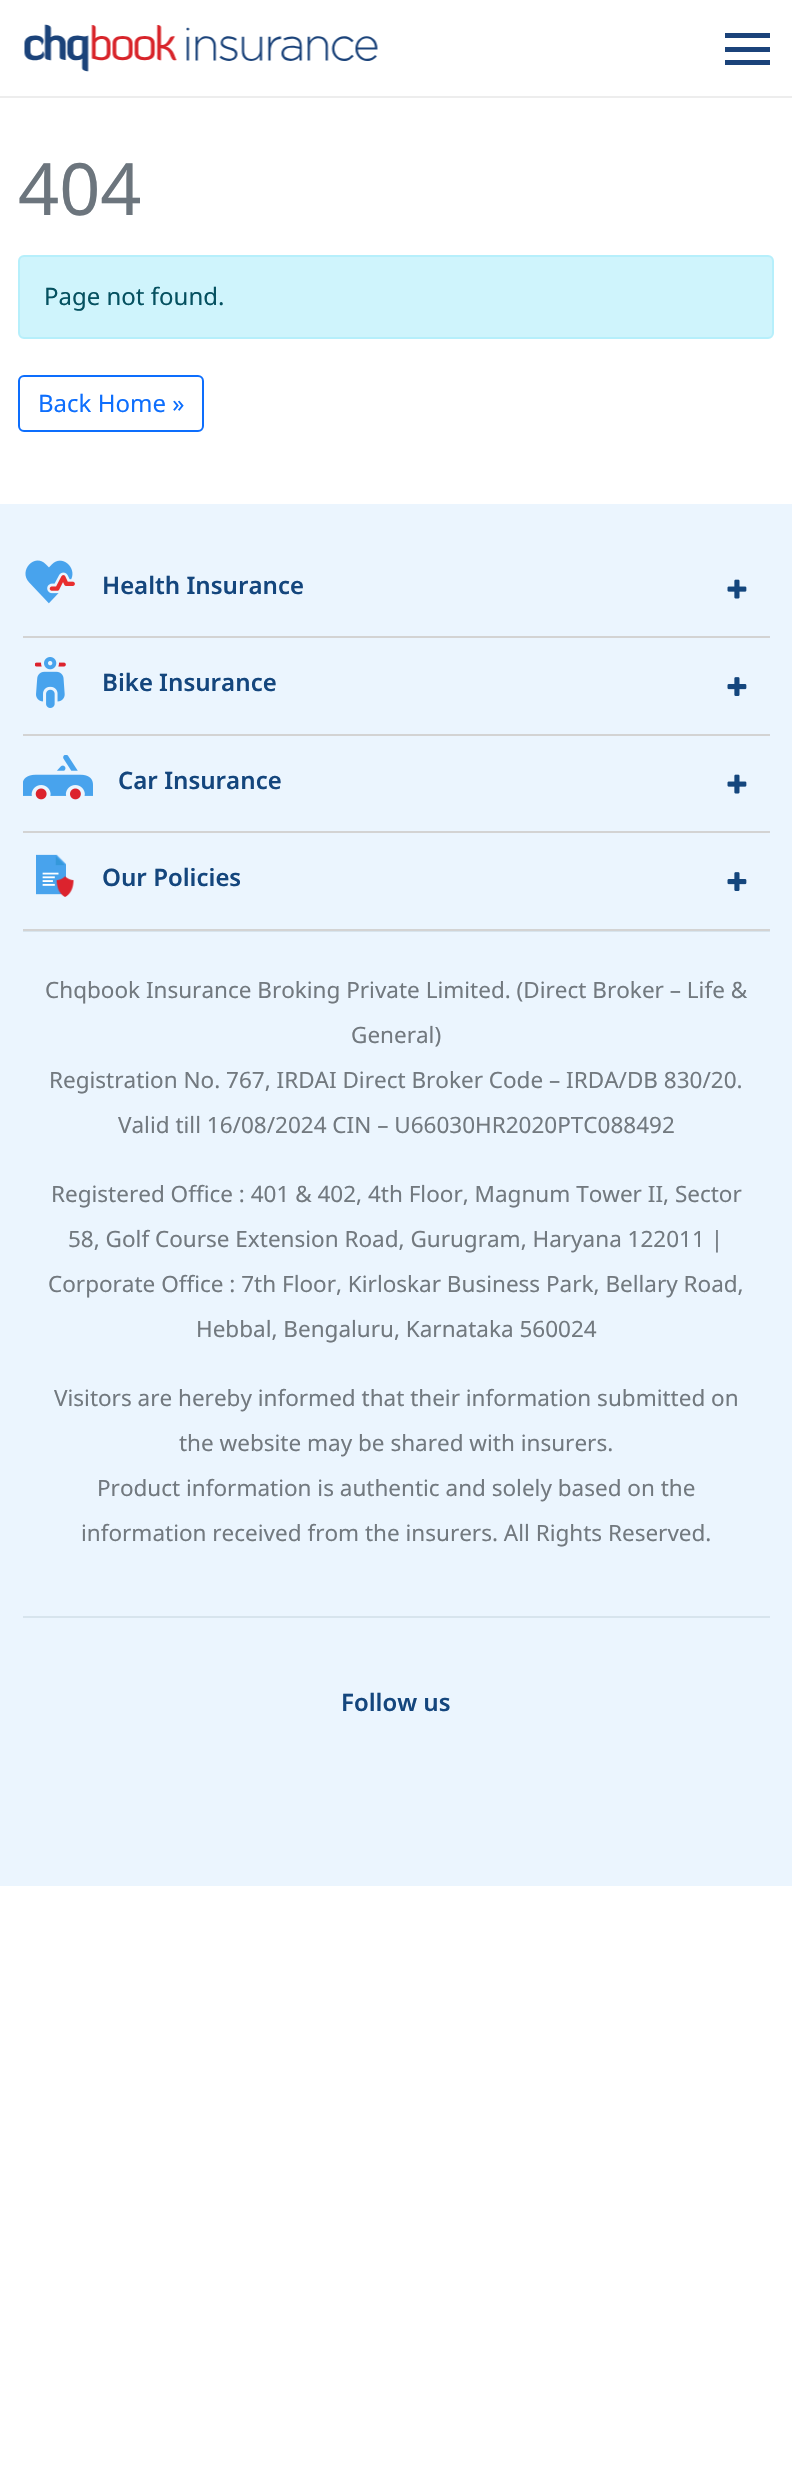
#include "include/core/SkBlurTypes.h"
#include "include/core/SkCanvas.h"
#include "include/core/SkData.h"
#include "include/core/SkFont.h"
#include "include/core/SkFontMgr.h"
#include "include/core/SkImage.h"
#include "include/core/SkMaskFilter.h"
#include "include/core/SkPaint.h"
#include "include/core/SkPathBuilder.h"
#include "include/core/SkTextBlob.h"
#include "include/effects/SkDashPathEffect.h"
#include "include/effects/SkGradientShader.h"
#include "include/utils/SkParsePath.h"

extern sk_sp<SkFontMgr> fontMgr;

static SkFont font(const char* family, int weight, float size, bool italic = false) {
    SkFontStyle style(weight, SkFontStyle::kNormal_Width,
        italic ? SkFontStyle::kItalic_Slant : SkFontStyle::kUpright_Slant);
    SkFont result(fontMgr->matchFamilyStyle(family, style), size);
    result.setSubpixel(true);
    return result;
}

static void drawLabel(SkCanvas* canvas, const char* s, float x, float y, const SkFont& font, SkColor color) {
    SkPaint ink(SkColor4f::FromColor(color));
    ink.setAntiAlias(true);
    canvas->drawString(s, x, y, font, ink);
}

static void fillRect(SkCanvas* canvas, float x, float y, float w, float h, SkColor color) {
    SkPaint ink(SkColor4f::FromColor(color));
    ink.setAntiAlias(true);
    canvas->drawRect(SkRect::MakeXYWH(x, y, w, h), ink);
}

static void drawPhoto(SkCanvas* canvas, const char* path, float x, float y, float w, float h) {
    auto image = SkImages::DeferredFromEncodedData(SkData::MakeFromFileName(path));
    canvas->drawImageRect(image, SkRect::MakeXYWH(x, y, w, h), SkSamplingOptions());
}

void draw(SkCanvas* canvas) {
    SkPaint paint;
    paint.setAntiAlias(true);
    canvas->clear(0xFFFFFFFF);
    fillRect(canvas, 0, 96, 792, 2, 0xFFEDEDED);
    drawPhoto(canvas, "assets/img1.png", 24, 24, 354, 48);
    fillRect(canvas, 725, 33, 45, 5, 0xFF1B437A);
    fillRect(canvas, 725, 47, 45, 5, 0xFF1B437A);
    fillRect(canvas, 725, 60, 45, 5, 0xFF1B437A);
    SkFont font1 = font("Noto Sans", 400, 72);
    drawLabel(canvas, "404", 18, 215, font1, 0xFF6C757D);
    paint.setColor(0xFFCFF4FC);
    canvas->drawRoundRect(SkRect::MakeXYWH(19, 256, 754, 82), 5, 5, paint);
    paint.setStroke(true);
    paint.setStrokeWidth(2);
    paint.setColor(0xFFB6EFFB);
    canvas->drawRoundRect(SkRect::MakeXYWH(19, 256, 754, 82), 5, 5, paint);
    SkFont font2 = font("Noto Sans", 400, 24);
    drawLabel(canvas, "Page not found.", 44, 305, font2, 0xFF055160);
    paint.setColor(0xFF0D6EFD);
    canvas->drawRoundRect(SkRect::MakeXYWH(19, 376, 184, 55), 5, 5, paint);
    drawLabel(canvas, "Back Home »", 38, 412, font2, 0xFF0D6EFD);
    fillRect(canvas, 0, 504, 792, 1382, 0xFFEBF5FE);
    fillRect(canvas, 23, 931, 747, 1, 0xFFD7E4ED);
    fillRect(canvas, 23, 636, 747, 2, 0xFFD3D3D3);
    drawPhoto(canvas, "assets/img2.png", 25, 560, 50, 44);
    SkFont font3 = font("Noto Sans", 600, 24);
    drawLabel(canvas, "Health Insurance", 102, 594, font3, 0xFF14467D);
    drawPhoto(canvas, "assets/img3.png", 727, 579, 20, 20);
    fillRect(canvas, 23, 734, 747, 2, 0xFFD3D3D3);
    drawPhoto(canvas, "assets/img4.png", 35, 657, 31, 51);
    drawLabel(canvas, "Bike Insurance", 102, 691, font3, 0xFF14467D);
    drawPhoto(canvas, "assets/img5.png", 727, 677, 20, 19);
    fillRect(canvas, 23, 831, 747, 2, 0xFFD3D3D3);
    drawPhoto(canvas, "assets/img6.png", 23, 755, 70, 45);
    drawLabel(canvas, "Car Insurance", 118, 789, font3, 0xFF14467D);
    drawPhoto(canvas, "assets/img3.png", 727, 774, 20, 20);
    fillRect(canvas, 23, 929, 747, 2, 0xFFD3D3D3);
    drawPhoto(canvas, "assets/img7.png", 36, 854, 38, 43);
    drawLabel(canvas, "Our Policies", 102, 886, font3, 0xFF14467D);
    drawPhoto(canvas, "assets/img5.png", 727, 872, 20, 19);
    fillRect(canvas, 23, 1616, 747, 2, 0xFFD7E4ED);
    SkFont font4 = font("Noto Sans", 400, 22.5f);
    drawLabel(canvas, "Chqbook Insurance Broking Private Limited. (Direct Broker – Life &", 45, 998, font4, 0xFF72797F);
    drawLabel(canvas, "General)", 351, 1043, font4, 0xFF72797F);
    drawLabel(canvas, "Registration No. 767, IRDAI Direct Broker Code – IRDA/DB 830/20.", 49, 1088, font4, 0xFF72797F);
    drawLabel(canvas, "Valid till 16/08/2024 CIN – U66030HR2020PTC088492", 118, 1133, font4, 0xFF72797F);
    drawLabel(canvas, "Registered Office : 401 & 402, 4th Floor, Magnum Tower II, Sector", 51, 1202, font4, 0xFF72797F);
    drawLabel(canvas, "58, Golf Course Extension Road, Gurugram, Haryana 122011 |", 68, 1247, font4, 0xFF72797F);
    drawLabel(canvas, "Corporate Office : 7th Floor, Kirloskar Business Park, Bellary Road,", 48, 1292, font4, 0xFF72797F);
    drawLabel(canvas, "Hebbal, Bengaluru, Karnataka 560024", 196, 1337, font4, 0xFF72797F);
    drawLabel(canvas, "Visitors are hereby informed that their information submitted on", 54, 1406, font4, 0xFF72797F);
    drawLabel(canvas, "the website may be shared with insurers.", 179, 1451, font4, 0xFF72797F);
    drawLabel(canvas, "Product information is authentic and solely based on the", 97, 1496, font4, 0xFF72797F);
    drawLabel(canvas, "information received from the insurers. All Rights Reserved.", 81, 1541, font4, 0xFF72797F);
    drawLabel(canvas, "Follow us", 341, 1711, font3, 0xFF14467D);
}
